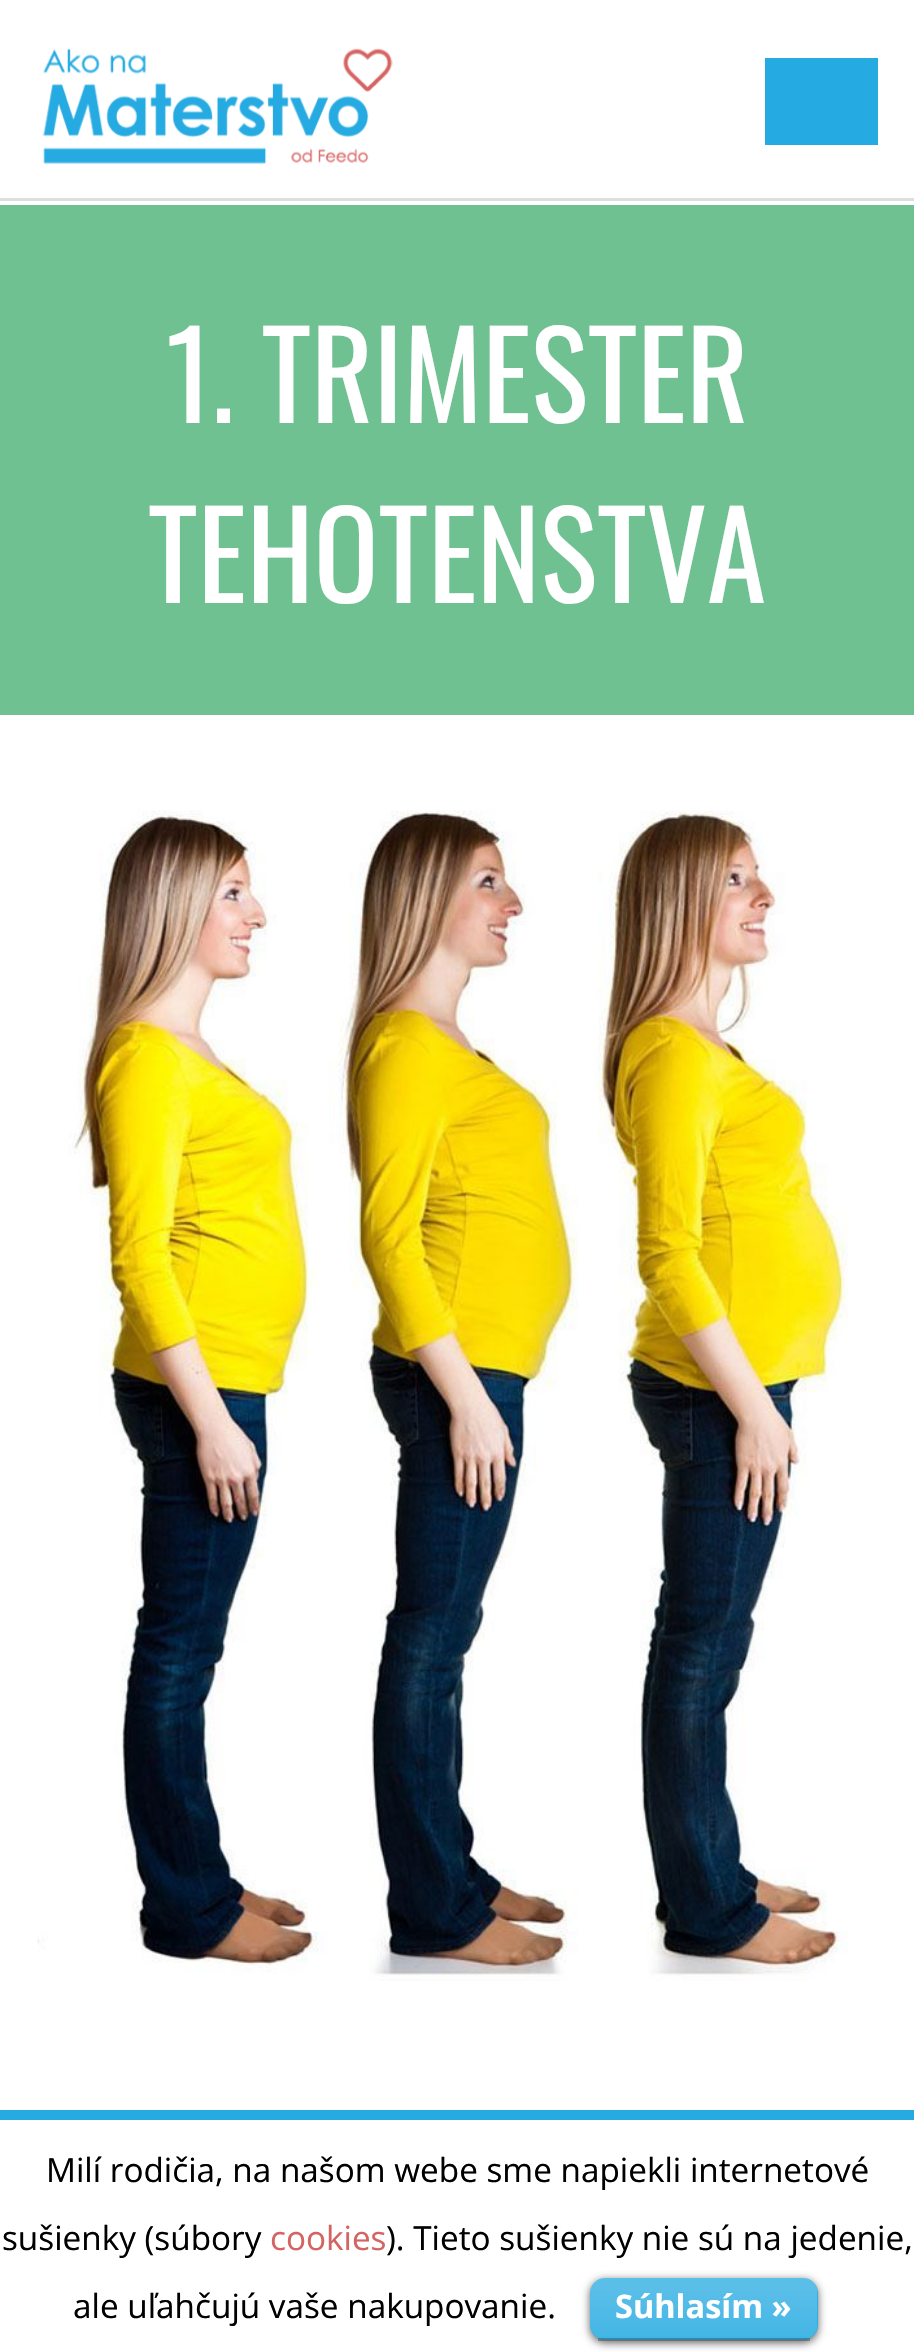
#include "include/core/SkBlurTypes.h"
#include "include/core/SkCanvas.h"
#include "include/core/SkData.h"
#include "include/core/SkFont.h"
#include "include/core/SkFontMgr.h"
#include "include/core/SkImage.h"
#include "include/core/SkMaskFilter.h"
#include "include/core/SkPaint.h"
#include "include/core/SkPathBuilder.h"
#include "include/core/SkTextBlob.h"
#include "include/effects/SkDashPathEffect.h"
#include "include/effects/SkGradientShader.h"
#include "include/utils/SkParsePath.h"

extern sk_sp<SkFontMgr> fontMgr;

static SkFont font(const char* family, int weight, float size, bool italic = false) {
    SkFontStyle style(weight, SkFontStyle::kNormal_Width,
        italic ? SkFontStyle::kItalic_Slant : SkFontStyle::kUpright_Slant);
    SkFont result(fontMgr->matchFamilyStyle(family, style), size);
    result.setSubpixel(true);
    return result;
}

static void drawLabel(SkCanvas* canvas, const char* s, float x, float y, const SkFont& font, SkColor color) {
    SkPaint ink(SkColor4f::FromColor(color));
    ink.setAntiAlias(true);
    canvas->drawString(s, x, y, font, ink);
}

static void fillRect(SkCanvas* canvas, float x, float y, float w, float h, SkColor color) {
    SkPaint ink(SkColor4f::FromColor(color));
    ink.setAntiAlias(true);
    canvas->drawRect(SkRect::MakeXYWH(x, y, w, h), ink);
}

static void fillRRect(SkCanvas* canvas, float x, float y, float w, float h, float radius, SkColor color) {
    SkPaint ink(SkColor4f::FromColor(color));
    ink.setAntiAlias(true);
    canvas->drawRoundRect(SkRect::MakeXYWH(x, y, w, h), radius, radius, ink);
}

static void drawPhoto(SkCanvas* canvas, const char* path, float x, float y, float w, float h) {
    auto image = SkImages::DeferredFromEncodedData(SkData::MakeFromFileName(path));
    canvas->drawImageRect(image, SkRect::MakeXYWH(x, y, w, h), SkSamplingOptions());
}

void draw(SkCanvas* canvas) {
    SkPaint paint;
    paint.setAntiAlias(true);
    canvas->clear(0xFFFFFFFF);
    fillRect(canvas, 0, 198, 914, 3, 0xFFDEDEDE);
    drawPhoto(canvas, "assets/img1.png", 42, 48, 351, 116);
    fillRect(canvas, 765, 58, 113, 87, 0xFF25AAE1);
    fillRect(canvas, 0, 205, 914, 510, 0xFF6FC191);
    SkFont font1 = font("Oswald", 400, 120);
    drawLabel(canvas, "1. TRIMESTER", 166, 423, font1, 0xFFFFFFFF);
    drawLabel(canvas, "TEHOTENSTVA", 148, 603, font1, 0xFFFFFFFF);
    drawPhoto(canvas, "assets/img2.png", 37, 810, 811, 1171);
    fillRect(canvas, 0, 2110, 914, 10, 0xFF25AAE1);
    SkFont font2 = font("Open Sans", 400, 33.3f);
    drawLabel(canvas, "Milí rodičia, na našom webe sme napiekli internetové", 46, 2182, font2, 0xFF000000);
    drawLabel(canvas, "sušienky (súbory", 2, 2250, font2, 0xFF000000);
    drawLabel(canvas, "cookies", 270, 2250, font2, 0xFFD56362);
    drawLabel(canvas, "). Tieto sušienky nie sú na jedenie,", 386, 2250, font2, 0xFF000000);
    drawLabel(canvas, "ale uľahčujú vaše nakupovanie.", 73, 2318, font2, 0xFF000000);
    paint.setColor(0x99000000);
    paint.setMaskFilter(SkMaskFilter::MakeBlur(kNormal_SkBlurStyle, 4));
    canvas->drawRoundRect(SkRect::MakeXYWH(590, 2280, 228, 63), 15, 15, paint);
    paint.setMaskFilter(nullptr);
    fillRRect(canvas, 590, 2278, 228, 62, 15, 0xFF25AAE1);
    drawPhoto(canvas, "assets/img3.png", 590, 2278, 228, 62);
    fillRect(canvas, 598, 2338, 212, 3, 0x40000000);
    SkFont font3 = font("Open Sans", 700, 32.5f);
    drawLabel(canvas, "Súhlasím »", 615, 2318, font3, 0xFFFFFFFF);
}
